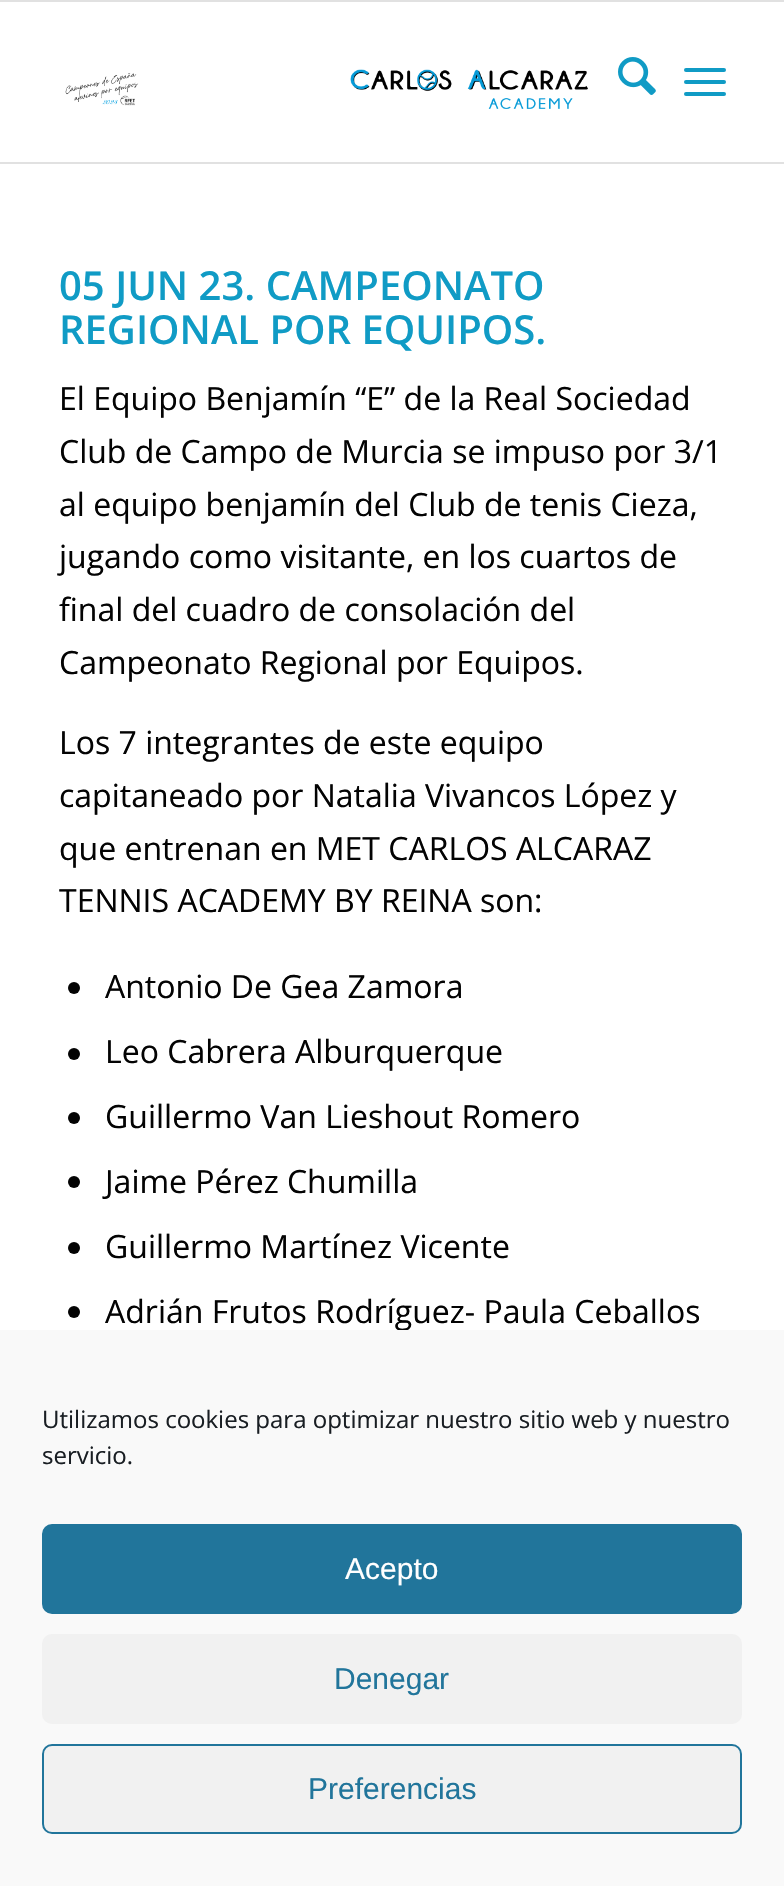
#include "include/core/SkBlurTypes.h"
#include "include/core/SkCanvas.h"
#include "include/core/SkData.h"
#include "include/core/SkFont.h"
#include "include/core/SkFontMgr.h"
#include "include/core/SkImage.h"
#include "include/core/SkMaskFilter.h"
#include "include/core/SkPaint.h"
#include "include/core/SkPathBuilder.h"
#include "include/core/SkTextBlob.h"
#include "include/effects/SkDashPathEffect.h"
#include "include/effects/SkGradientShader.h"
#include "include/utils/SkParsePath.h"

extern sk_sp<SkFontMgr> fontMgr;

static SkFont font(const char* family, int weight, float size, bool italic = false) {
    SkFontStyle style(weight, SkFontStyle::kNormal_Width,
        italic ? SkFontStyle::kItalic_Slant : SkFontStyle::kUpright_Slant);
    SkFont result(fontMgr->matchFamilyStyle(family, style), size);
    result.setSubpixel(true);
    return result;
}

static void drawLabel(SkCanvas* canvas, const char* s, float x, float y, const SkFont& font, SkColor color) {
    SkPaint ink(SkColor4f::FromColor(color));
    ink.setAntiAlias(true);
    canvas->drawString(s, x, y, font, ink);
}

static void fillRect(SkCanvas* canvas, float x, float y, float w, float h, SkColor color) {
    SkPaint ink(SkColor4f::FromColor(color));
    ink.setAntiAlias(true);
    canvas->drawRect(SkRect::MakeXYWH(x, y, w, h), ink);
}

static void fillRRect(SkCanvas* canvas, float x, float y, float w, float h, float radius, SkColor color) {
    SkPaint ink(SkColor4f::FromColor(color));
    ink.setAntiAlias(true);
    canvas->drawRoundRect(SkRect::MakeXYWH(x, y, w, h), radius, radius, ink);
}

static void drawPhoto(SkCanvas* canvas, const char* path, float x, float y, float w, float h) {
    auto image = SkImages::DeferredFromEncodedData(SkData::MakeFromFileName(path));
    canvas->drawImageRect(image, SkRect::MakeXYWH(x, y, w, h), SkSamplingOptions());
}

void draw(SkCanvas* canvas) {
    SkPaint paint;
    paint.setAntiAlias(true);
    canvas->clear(0xFFFFFFFF);
    fillRect(canvas, 0, 0, 784, 2, 0xFFE1E1E1);
    fillRect(canvas, 0, 162, 784, 2, 0xFFE1E1E1);
    drawPhoto(canvas, "assets/img1.png", 65, 69, 523, 40);
    drawPhoto(canvas, "assets/img2.png", 618, 57, 38, 38);
    fillRRect(canvas, 684, 80, 42, 4, 2, 0xFF109BC5);
    fillRRect(canvas, 684, 68, 42, 4, 2, 0xFF109BC5);
    fillRRect(canvas, 684, 92, 42, 4, 2, 0xFF109BC5);
    SkFont font1 = font("Open Sans", 600, 40);
    drawLabel(canvas, "05 JUN 23. CAMPEONATO", 59, 300, font1, 0xFF109BC5);
    drawLabel(canvas, "REGIONAL POR EQUIPOS.", 59, 344, font1, 0xFF109BC5);
    SkFont font2 = font("Open Sans", 400, 32);
    drawLabel(canvas, "El Equipo Benjamín “E” de la Real Sociedad", 59, 410, font2, 0xFF030303);
    drawLabel(canvas, "Club de Campo de Murcia se impuso por 3/1", 59, 463, font2, 0xFF030303);
    drawLabel(canvas, "al equipo benjamín del Club de tenis Cieza,", 59, 516, font2, 0xFF030303);
    drawLabel(canvas, "jugando como visitante, en los cuartos de", 59, 568, font2, 0xFF030303);
    drawLabel(canvas, "final del cuadro de consolación del", 59, 621, font2, 0xFF030303);
    drawLabel(canvas, "Campeonato Regional por Equipos.", 59, 674, font2, 0xFF030303);
    drawLabel(canvas, "Los 7 integrantes de este equipo", 59, 754, font2, 0xFF030303);
    drawLabel(canvas, "capitaneado por Natalia Vivancos López y", 59, 807, font2, 0xFF030303);
    drawLabel(canvas, "que entrenan en MET CARLOS ALCARAZ", 59, 860, font2, 0xFF030303);
    drawLabel(canvas, "TENNIS ACADEMY BY REINA son:", 59, 912, font2, 0xFF030303);
    paint.setColor(0xFF030303);
    canvas->drawCircle(74, 988, 6, paint);
    drawLabel(canvas, "Antonio De Gea Zamora", 105, 998, font2, 0xFF030303);
    canvas->drawCircle(74, 1054, 6, paint);
    drawLabel(canvas, "Leo Cabrera Alburquerque", 105, 1063, font2, 0xFF030303);
    canvas->drawCircle(74, 1118, 6, paint);
    drawLabel(canvas, "Guillermo Van Lieshout Romero", 105, 1128, font2, 0xFF030303);
    canvas->drawCircle(74, 1182, 6, paint);
    drawLabel(canvas, "Jaime Pérez Chumilla", 105, 1193, font2, 0xFF030303);
    canvas->drawCircle(74, 1248, 6, paint);
    drawLabel(canvas, "Guillermo Martínez Vicente", 105, 1258, font2, 0xFF030303);
    canvas->drawCircle(74, 1312, 6, paint);
    drawLabel(canvas, "Adrián Frutos Rodríguez- Paula Ceballos", 105, 1323, font2, 0xFF030303);
    fillRect(canvas, 0, 1330, 784, 556, 0xFFF9F9F9);
    SkFont font3 = font("Open Sans", 400, 24);
    drawLabel(canvas, "Utilizamos cookies para optimizar nuestro sitio web y nuestro", 42, 1428, font3, 0xFF191E23);
    drawLabel(canvas, "servicio.", 42, 1464, font3, 0xFF191E23);
    paint.setColor(0xFF21759B);
    canvas->drawRoundRect(SkRect::MakeXYWH(43, 1525, 698, 88), 9, 9, paint);
    paint.setStroke(true);
    paint.setStrokeWidth(2);
    canvas->drawRoundRect(SkRect::MakeXYWH(43, 1525, 698, 88), 9, 9, paint);
    SkFont font4 = font("Liberation Sans", 400, 30);
    drawLabel(canvas, "Acepto", 345, 1579, font4, 0xFFFFFFFF);
    fillRRect(canvas, 42, 1634, 700, 90, 10, 0xFFF1F1F1);
    drawLabel(canvas, "Denegar", 334, 1689, font4, 0xFF21759B);
    paint.setStroke(false);
    paint.setColor(0xFFF1F1F1);
    canvas->drawRoundRect(SkRect::MakeXYWH(43, 1745, 698, 88), 9, 9, paint);
    paint.setStroke(true);
    paint.setColor(0xFF21759B);
    canvas->drawRoundRect(SkRect::MakeXYWH(43, 1745, 698, 88), 9, 9, paint);
    drawLabel(canvas, "Preferencias", 308, 1799, font4, 0xFF21759B);
}
